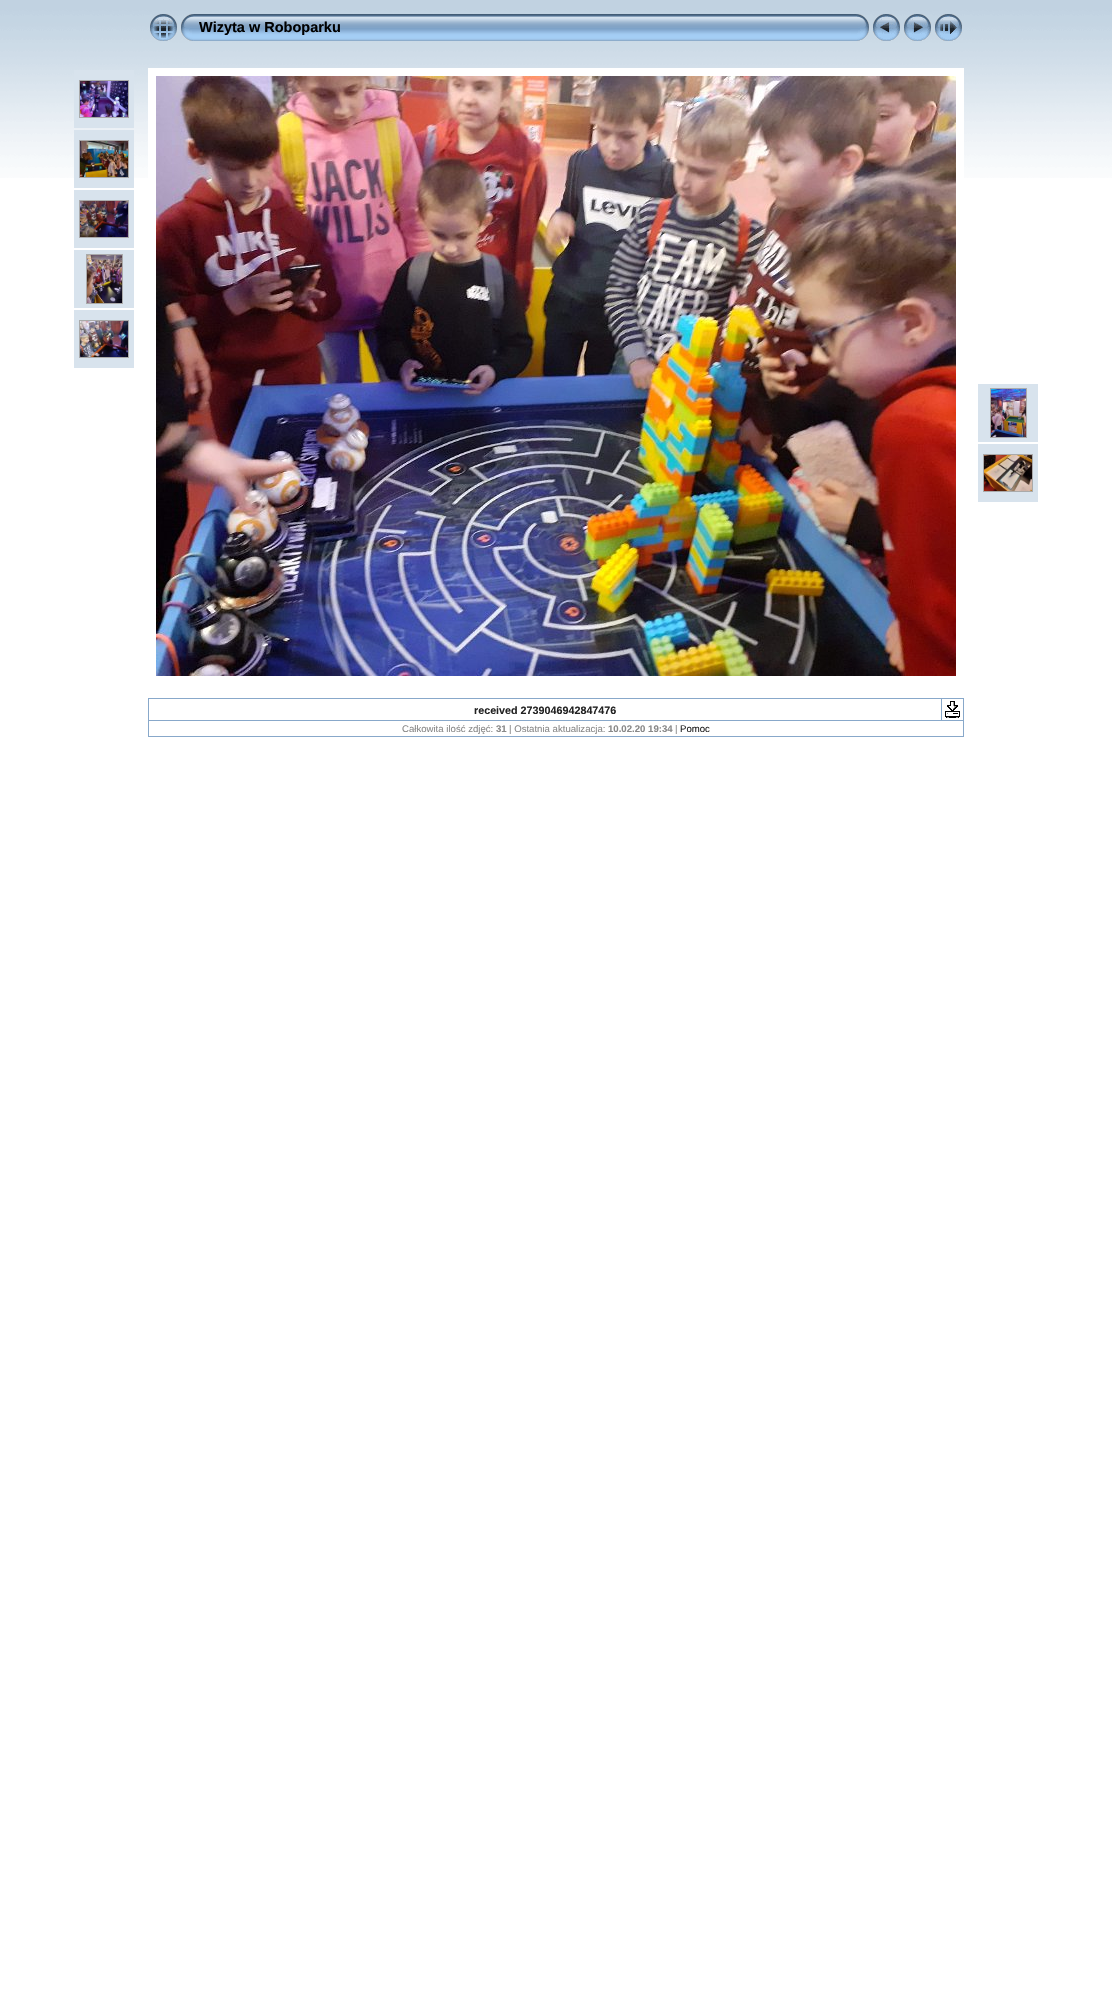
#include "include/core/SkBlurTypes.h"
#include "include/core/SkCanvas.h"
#include "include/core/SkData.h"
#include "include/core/SkFont.h"
#include "include/core/SkFontMgr.h"
#include "include/core/SkImage.h"
#include "include/core/SkMaskFilter.h"
#include "include/core/SkPaint.h"
#include "include/core/SkPathBuilder.h"
#include "include/core/SkTextBlob.h"
#include "include/effects/SkDashPathEffect.h"
#include "include/effects/SkGradientShader.h"
#include "include/utils/SkParsePath.h"

extern sk_sp<SkFontMgr> fontMgr;

static SkFont font(const char* family, int weight, float size, bool italic = false) {
    SkFontStyle style(weight, SkFontStyle::kNormal_Width,
        italic ? SkFontStyle::kItalic_Slant : SkFontStyle::kUpright_Slant);
    SkFont result(fontMgr->matchFamilyStyle(family, style), size);
    result.setSubpixel(true);
    return result;
}

static void drawLabel(SkCanvas* canvas, const char* s, float x, float y, const SkFont& font, SkColor color) {
    SkPaint ink(SkColor4f::FromColor(color));
    ink.setAntiAlias(true);
    canvas->drawString(s, x, y, font, ink);
}

static void fillRect(SkCanvas* canvas, float x, float y, float w, float h, SkColor color) {
    SkPaint ink(SkColor4f::FromColor(color));
    ink.setAntiAlias(true);
    canvas->drawRect(SkRect::MakeXYWH(x, y, w, h), ink);
}

static void drawPhoto(SkCanvas* canvas, const char* path, float x, float y, float w, float h) {
    auto image = SkImages::DeferredFromEncodedData(SkData::MakeFromFileName(path));
    canvas->drawImageRect(image, SkRect::MakeXYWH(x, y, w, h), SkSamplingOptions());
}

void draw(SkCanvas* canvas) {
    SkPaint paint;
    paint.setAntiAlias(true);
    canvas->clear(0xFFFFFFFF);
    drawPhoto(canvas, "assets/img1.png", 0, 0, 1112, 178);
    drawPhoto(canvas, "assets/img2.png", 150, 14, 27, 27);
    drawPhoto(canvas, "assets/img3.png", 181, 14, 18, 27);
    drawPhoto(canvas, "assets/img4.png", 199, 14, 652, 27);
    SkFont font1 = font("Liberation Sans", 700, 14.5f);
    drawLabel(canvas, "Wizyta w Roboparku", 199, 32, font1, 0xFF000000);
    drawPhoto(canvas, "assets/img5.png", 851, 14, 18, 27);
    drawPhoto(canvas, "assets/img6.png", 873, 14, 27, 27);
    drawPhoto(canvas, "assets/img7.png", 904, 14, 27, 27);
    drawPhoto(canvas, "assets/img8.png", 935, 14, 27, 27);
    fillRect(canvas, 74, 70, 60, 58, 0xFFD8E3ED);
    paint.setStroke(true);
    paint.setStrokeWidth(1);
    paint.setColor(0xFFAAAAAA);
    canvas->drawRect(SkRect::MakeXYWH(79.5f, 80.5f, 49, 37), paint);
    drawPhoto(canvas, "assets/img9.png", 80, 81, 48, 36);
    fillRect(canvas, 74, 130, 60, 58, 0xFFD8E3ED);
    canvas->drawRect(SkRect::MakeXYWH(79.5f, 140.5f, 49, 37), paint);
    drawPhoto(canvas, "assets/img10.png", 80, 141, 48, 36);
    fillRect(canvas, 74, 190, 60, 58, 0xFFD8E3ED);
    canvas->drawRect(SkRect::MakeXYWH(79.5f, 200.5f, 49, 37), paint);
    drawPhoto(canvas, "assets/img11.png", 80, 201, 48, 36);
    fillRect(canvas, 74, 250, 60, 58, 0xFFD8E3ED);
    canvas->drawRect(SkRect::MakeXYWH(86.5f, 254.5f, 36, 49), paint);
    drawPhoto(canvas, "assets/img12.png", 87, 255, 35, 48);
    fillRect(canvas, 74, 310, 60, 58, 0xFFD8E3ED);
    canvas->drawRect(SkRect::MakeXYWH(79.5f, 320.5f, 49, 37), paint);
    drawPhoto(canvas, "assets/img13.png", 80, 321, 48, 36);
    paint.setStrokeWidth(8);
    paint.setColor(0xFFFFFFFF);
    canvas->drawRect(SkRect::MakeXYWH(152, 72, 808, 608), paint);
    drawPhoto(canvas, "assets/img14.png", 156, 76, 800, 600);
    fillRect(canvas, 978, 384, 60, 58, 0xFFD8E3ED);
    paint.setStrokeWidth(1);
    paint.setColor(0xFFAAAAAA);
    canvas->drawRect(SkRect::MakeXYWH(990.5f, 388.5f, 36, 49), paint);
    drawPhoto(canvas, "assets/img15.png", 991, 389, 35, 48);
    fillRect(canvas, 978, 444, 60, 58, 0xFFD8E3ED);
    canvas->drawRect(SkRect::MakeXYWH(983.5f, 454.5f, 49, 37), paint);
    drawPhoto(canvas, "assets/img16.png", 984, 455, 48, 36);
    fillRect(canvas, 148, 698, 816, 1, 0xFF88A8CA);
    fillRect(canvas, 963, 698, 1, 39, 0xFF88A8CA);
    fillRect(canvas, 148, 736, 816, 1, 0xFF88A8CA);
    fillRect(canvas, 148, 698, 1, 39, 0xFF88A8CA);
    SkFont font2 = font("Liberation Sans", 700, 10.75f);
    drawLabel(canvas, "received 2739046942847476", 474, 714, font2, 0xFF222222);
    fillRect(canvas, 148, 720, 816, 1, 0xFF88A8CA);
    fillRect(canvas, 941, 698, 1, 23, 0xFF88A8CA);
    drawPhoto(canvas, "assets/img17.png", 945, 701, 15, 17);
    SkFont font3 = font("Liberation Sans", 400, 9.6f);
    drawLabel(canvas, "Całkowita ilość zdjęć:", 402, 732, font3, 0xFF888888);
    SkFont font4 = font("Liberation Sans", 700, 9.6f);
    drawLabel(canvas, "31", 496, 732, font4, 0xFF888888);
    drawLabel(canvas, "| Ostatnia aktualizacja:", 509, 732, font3, 0xFF888888);
    drawLabel(canvas, "10.02.20 19:34", 608, 732, font4, 0xFF888888);
    drawLabel(canvas, "|", 675, 732, font3, 0xFF888888);
    drawLabel(canvas, "Pomoc", 680, 732, font3, 0xFF222222);
}
